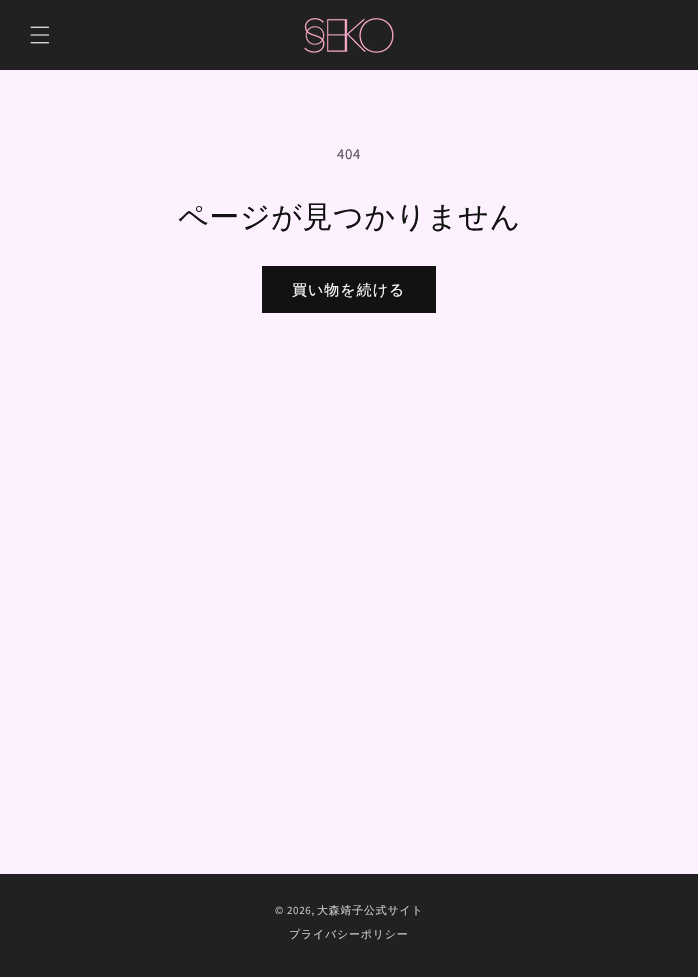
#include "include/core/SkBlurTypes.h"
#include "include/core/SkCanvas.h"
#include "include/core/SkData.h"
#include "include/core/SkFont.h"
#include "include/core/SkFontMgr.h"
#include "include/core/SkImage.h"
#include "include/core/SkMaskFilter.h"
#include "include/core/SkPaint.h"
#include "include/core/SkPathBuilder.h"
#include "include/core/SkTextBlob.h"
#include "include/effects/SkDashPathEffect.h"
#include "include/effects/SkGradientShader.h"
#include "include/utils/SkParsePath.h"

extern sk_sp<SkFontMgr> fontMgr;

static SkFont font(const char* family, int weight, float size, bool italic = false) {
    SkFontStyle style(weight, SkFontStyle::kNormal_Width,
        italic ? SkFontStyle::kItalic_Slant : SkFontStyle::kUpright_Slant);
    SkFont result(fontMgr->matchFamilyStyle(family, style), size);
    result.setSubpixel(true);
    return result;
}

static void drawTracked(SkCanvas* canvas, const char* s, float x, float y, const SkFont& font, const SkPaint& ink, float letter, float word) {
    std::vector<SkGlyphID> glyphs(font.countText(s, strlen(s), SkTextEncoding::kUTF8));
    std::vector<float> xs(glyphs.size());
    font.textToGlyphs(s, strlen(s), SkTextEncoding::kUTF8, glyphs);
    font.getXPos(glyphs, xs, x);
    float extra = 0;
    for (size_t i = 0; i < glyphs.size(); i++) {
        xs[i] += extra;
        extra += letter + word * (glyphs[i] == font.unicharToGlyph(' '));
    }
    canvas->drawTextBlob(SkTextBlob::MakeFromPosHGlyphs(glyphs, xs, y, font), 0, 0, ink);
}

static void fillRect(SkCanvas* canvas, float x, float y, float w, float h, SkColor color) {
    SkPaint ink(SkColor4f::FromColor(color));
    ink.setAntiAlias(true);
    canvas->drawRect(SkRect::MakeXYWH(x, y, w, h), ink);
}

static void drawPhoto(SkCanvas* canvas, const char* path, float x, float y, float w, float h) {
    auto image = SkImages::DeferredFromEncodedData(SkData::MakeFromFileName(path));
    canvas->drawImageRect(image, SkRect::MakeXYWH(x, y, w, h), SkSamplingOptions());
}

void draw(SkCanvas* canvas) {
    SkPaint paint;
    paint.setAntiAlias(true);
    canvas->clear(0xFFFEF1FF);
    fillRect(canvas, 0, 0, 698, 70, 0xFF212121);
    drawPhoto(canvas, "assets/img1.png", 30, 26, 20, 18);
    drawPhoto(canvas, "assets/img2.png", 304, 18, 90, 35);
    SkFont font1 = font("Assistant", 400, 15);
    paint.setColor(0xFF4D4A4D);
    drawTracked(canvas, "404", 337, 159, font1, paint, 0.6f, 0);
    SkFont font2 = font("WenQuanYi Zen Hei", 500, 30);
    paint.setColor(0xFF121212);
    drawTracked(canvas, "ページが見つかりません", 178, 227, font2, paint, 0.6f, 0);
    fillRect(canvas, 262, 266, 174, 47, 0xFF121212);
    SkFont font3 = font("WenQuanYi Zen Hei", 500, 15);
    paint.setColor(0xFFFFFFFF);
    drawTracked(canvas, "買い物を続ける", 292, 295, font3, paint, 1, 0);
    fillRect(canvas, 0, 874, 698, 103, 0xFF212121);
    SkFont font4 = font("Assistant", 400, 11);
    paint.setColor(0xFFC8C8C8);
    drawTracked(canvas, "© 2026,", 275, 914, font4, paint, 0.75f, 0);
    SkFont font5 = font("WenQuanYi Zen Hei", 500, 11);
    drawTracked(canvas, "大森靖子公式サイト", 317, 914, font5, paint, 0.75f, 0);
    drawTracked(canvas, "プライバシーポリシー", 289, 938, font5, paint, 0.75f, 0);
}
